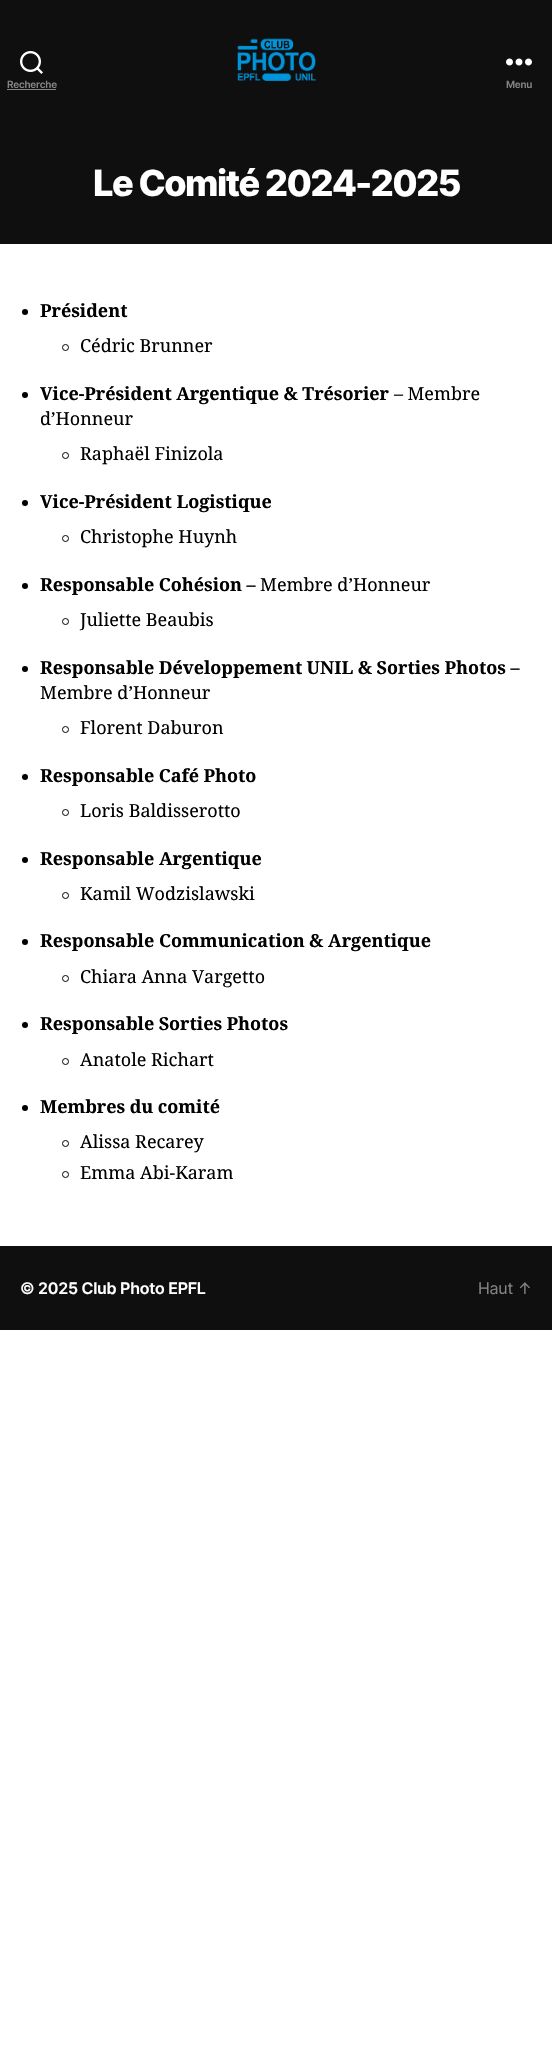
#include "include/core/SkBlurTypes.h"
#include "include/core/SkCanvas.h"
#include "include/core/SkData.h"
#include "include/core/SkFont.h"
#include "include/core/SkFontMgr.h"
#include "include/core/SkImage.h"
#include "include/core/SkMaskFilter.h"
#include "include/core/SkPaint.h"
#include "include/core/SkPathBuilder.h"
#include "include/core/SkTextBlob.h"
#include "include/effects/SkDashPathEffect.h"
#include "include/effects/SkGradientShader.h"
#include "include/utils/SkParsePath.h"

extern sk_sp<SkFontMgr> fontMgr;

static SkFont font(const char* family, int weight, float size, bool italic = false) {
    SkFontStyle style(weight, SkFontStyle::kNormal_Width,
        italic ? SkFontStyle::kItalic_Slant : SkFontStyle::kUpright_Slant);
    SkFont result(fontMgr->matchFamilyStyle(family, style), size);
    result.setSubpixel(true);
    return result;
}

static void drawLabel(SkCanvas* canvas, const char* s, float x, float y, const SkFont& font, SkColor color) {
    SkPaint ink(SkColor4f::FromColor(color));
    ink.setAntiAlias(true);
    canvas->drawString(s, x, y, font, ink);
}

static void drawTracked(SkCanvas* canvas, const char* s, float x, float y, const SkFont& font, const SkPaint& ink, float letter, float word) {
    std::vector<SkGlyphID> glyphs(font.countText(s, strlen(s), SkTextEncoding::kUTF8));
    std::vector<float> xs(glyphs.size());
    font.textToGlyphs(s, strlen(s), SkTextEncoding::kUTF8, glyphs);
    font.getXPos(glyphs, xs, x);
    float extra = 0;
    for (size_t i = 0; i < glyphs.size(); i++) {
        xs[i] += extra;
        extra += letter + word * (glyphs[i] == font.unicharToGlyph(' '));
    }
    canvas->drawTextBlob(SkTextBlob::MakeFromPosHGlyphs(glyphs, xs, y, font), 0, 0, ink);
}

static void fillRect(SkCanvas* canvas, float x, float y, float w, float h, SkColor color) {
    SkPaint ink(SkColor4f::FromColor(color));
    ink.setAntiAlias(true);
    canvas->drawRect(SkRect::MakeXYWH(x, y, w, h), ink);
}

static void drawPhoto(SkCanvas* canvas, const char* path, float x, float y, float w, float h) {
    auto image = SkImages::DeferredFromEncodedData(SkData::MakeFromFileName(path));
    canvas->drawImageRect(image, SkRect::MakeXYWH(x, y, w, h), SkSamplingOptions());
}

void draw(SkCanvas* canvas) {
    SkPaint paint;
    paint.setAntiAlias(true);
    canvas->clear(0xFFFFFFFF);
    fillRect(canvas, 0, 0, 552, 244, 0xFF0F0F0F);
    drawPhoto(canvas, "assets/img1.png", 237, 38, 79, 43);
    drawPhoto(canvas, "assets/img2.png", 20, 51, 23, 23);
    SkFont font1 = font("Inter", 600, 10);
    paint.setColor(0xFF848484);
    drawTracked(canvas, "Recherche", 7, 88, font1, paint, -0.25f, 0);
    fillRect(canvas, 7, 89, 49, 1, 0xFF848484);
    drawPhoto(canvas, "assets/img3.png", 506, 58, 26, 8);
    drawTracked(canvas, "Menu", 506, 88, font1, paint, -0.25f, 0);
    SkFont font2 = font("Inter", 800, 36);
    paint.setColor(0xFFFFFFFF);
    drawTracked(canvas, "Le Comité 2024-2025", 93, 196, font2, paint, -1.5f, 0);
    paint.setColor(0xFF000000);
    canvas->drawCircle(25, 312, 3, paint);
    SkFont font3 = font("Noto Serif", 700, 18);
    drawLabel(canvas, "Président", 40, 317, font3, 0xFF000000);
    paint.setStroke(true);
    paint.setStrokeWidth(1);
    canvas->drawCircle(65.5f, 347.5f, 3, paint);
    SkFont font4 = font("Noto Serif", 400, 18);
    drawLabel(canvas, "Cédric Brunner", 80, 352, font4, 0xFF000000);
    paint.setStroke(false);
    canvas->drawCircle(25, 395, 3, paint);
    drawTracked(canvas, "Vice-Président Argentique & Trésorier", 40, 400, font3, paint, 0, -0.25f);
    drawTracked(canvas, "– Membre", 394, 400, font4, paint, 0, -0.25f);
    drawLabel(canvas, "d’Honneur", 40, 425, font4, 0xFF000000);
    paint.setStroke(true);
    canvas->drawCircle(65.5f, 455.5f, 3, paint);
    drawLabel(canvas, "Raphaël Finizola", 80, 460, font4, 0xFF000000);
    paint.setStroke(false);
    canvas->drawCircle(25, 503, 3, paint);
    drawLabel(canvas, "Vice-Président Logistique", 40, 508, font3, 0xFF000000);
    paint.setStroke(true);
    canvas->drawCircle(65.5f, 538.5f, 3, paint);
    drawLabel(canvas, "Christophe Huynh", 80, 543, font4, 0xFF000000);
    paint.setStroke(false);
    canvas->drawCircle(25, 586, 3, paint);
    drawTracked(canvas, "Responsable Cohésion –", 40, 591, font3, paint, 0, -0.25f);
    drawLabel(canvas, "Membre d’Honneur", 260, 591, font4, 0xFF000000);
    paint.setStroke(true);
    canvas->drawCircle(65.5f, 621.5f, 3, paint);
    drawLabel(canvas, "Juliette Beaubis", 80, 626, font4, 0xFF000000);
    paint.setStroke(false);
    canvas->drawCircle(25, 669, 3, paint);
    drawTracked(canvas, "Responsable Développement UNIL & Sorties Photos –", 40, 674, font3, paint, 0, -0.25f);
    drawLabel(canvas, "Membre d’Honneur", 40, 699, font4, 0xFF000000);
    paint.setStroke(true);
    canvas->drawCircle(65.5f, 729.5f, 3, paint);
    drawLabel(canvas, "Florent Daburon", 80, 734, font4, 0xFF000000);
    paint.setStroke(false);
    canvas->drawCircle(25, 777, 3, paint);
    drawTracked(canvas, "Responsable Café Photo", 40, 782, font3, paint, 0, -0.25f);
    paint.setStroke(true);
    canvas->drawCircle(65.5f, 812.5f, 3, paint);
    drawLabel(canvas, "Loris Baldisserotto", 80, 817, font4, 0xFF000000);
    paint.setStroke(false);
    canvas->drawCircle(25, 860, 3, paint);
    drawLabel(canvas, "Responsable Argentique", 40, 865, font3, 0xFF000000);
    paint.setStroke(true);
    canvas->drawCircle(65.5f, 895.5f, 3, paint);
    drawLabel(canvas, "Kamil Wodzislawski", 80, 900, font4, 0xFF000000);
    paint.setStroke(false);
    canvas->drawCircle(25, 942, 3, paint);
    drawLabel(canvas, "Responsable Communication", 40, 947, font3, 0xFF000000);
    drawLabel(canvas, "& Argentique", 309, 947, font3, 0xFF000000);
    paint.setStroke(true);
    canvas->drawCircle(65.5f, 978.5f, 3, paint);
    paint.setStroke(false);
    drawTracked(canvas, "Chiara Anna Vargetto", 80, 983, font4, paint, 0, -0.25f);
    canvas->drawCircle(25, 1025, 3, paint);
    drawTracked(canvas, "Responsable Sorties Photos", 40, 1030, font3, paint, 0, -0.25f);
    paint.setStroke(true);
    canvas->drawCircle(65.5f, 1061.5f, 3, paint);
    drawLabel(canvas, "Anatole Richart", 80, 1066, font4, 0xFF000000);
    paint.setStroke(false);
    canvas->drawCircle(25, 1108, 3, paint);
    drawTracked(canvas, "Membres du comité", 40, 1113, font3, paint, 0, -0.25f);
    paint.setStroke(true);
    canvas->drawCircle(65.5f, 1143.5f, 3, paint);
    drawLabel(canvas, "Alissa Recarey", 80, 1148, font4, 0xFF000000);
    canvas->drawCircle(65.5f, 1174.5f, 3, paint);
    drawLabel(canvas, "Emma Abi-Karam", 80, 1179, font4, 0xFF000000);
    fillRect(canvas, 0, 1246, 552, 84, 0xFF0F0F0F);
    SkFont font5 = font("Inter", 600, 16);
    paint.setStroke(false);
    paint.setColor(0xFFFFFFFF);
    drawTracked(canvas, "© 2025 Club Photo EPFL", 20, 1294, font5, paint, -0.25f, 0);
    SkFont font6 = font("Inter", 400, 16);
    paint.setColor(0xFF848484);
    drawTracked(canvas, "Haut ↑", 478, 1294, font6, paint, -0.25f, 0);
}
